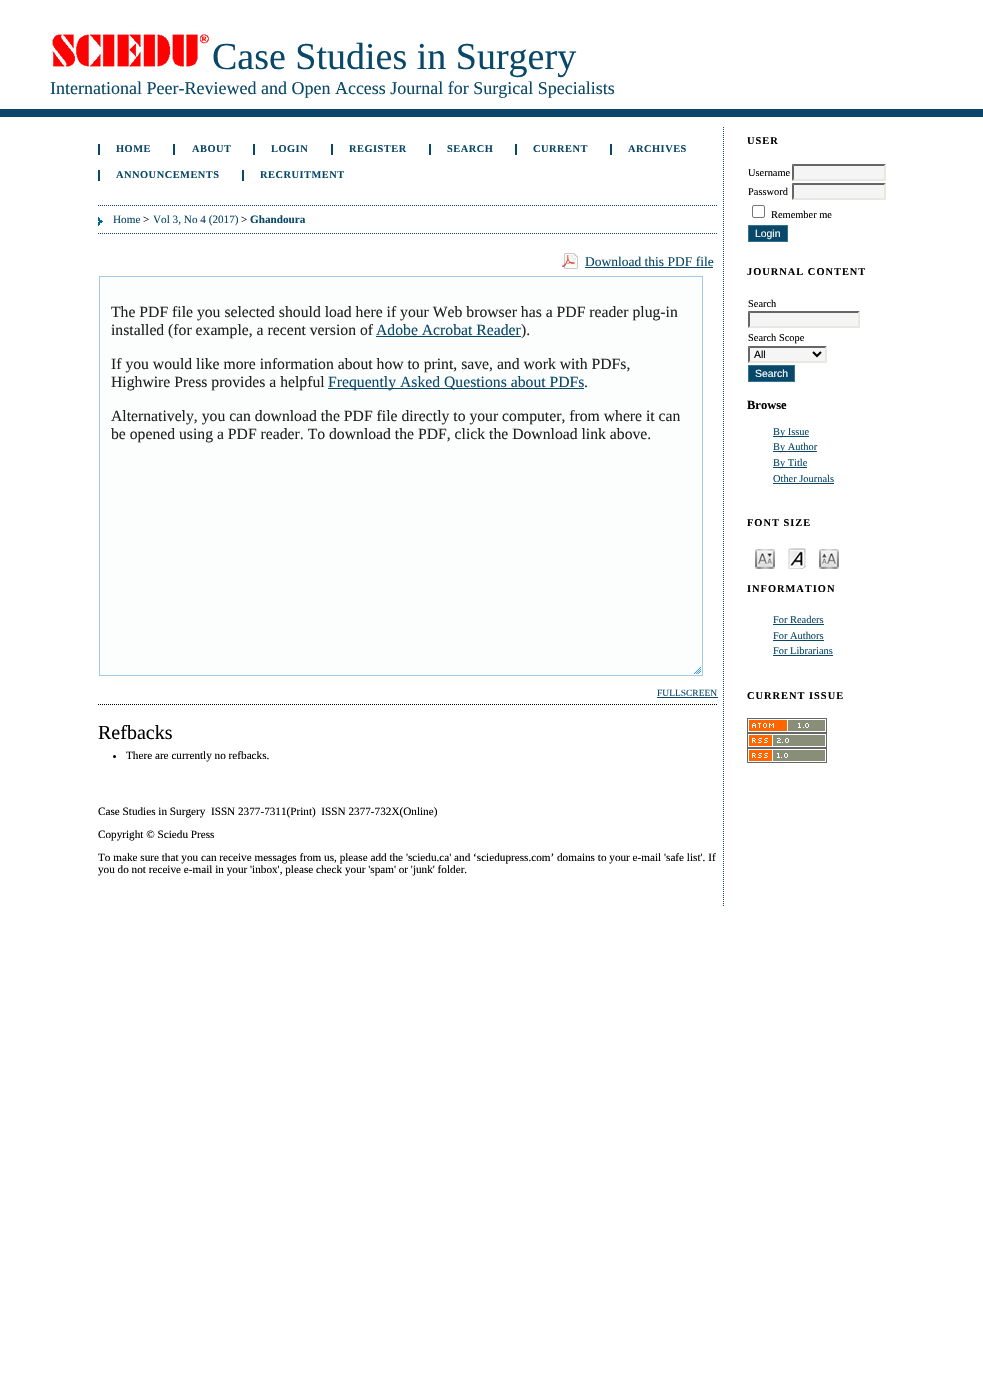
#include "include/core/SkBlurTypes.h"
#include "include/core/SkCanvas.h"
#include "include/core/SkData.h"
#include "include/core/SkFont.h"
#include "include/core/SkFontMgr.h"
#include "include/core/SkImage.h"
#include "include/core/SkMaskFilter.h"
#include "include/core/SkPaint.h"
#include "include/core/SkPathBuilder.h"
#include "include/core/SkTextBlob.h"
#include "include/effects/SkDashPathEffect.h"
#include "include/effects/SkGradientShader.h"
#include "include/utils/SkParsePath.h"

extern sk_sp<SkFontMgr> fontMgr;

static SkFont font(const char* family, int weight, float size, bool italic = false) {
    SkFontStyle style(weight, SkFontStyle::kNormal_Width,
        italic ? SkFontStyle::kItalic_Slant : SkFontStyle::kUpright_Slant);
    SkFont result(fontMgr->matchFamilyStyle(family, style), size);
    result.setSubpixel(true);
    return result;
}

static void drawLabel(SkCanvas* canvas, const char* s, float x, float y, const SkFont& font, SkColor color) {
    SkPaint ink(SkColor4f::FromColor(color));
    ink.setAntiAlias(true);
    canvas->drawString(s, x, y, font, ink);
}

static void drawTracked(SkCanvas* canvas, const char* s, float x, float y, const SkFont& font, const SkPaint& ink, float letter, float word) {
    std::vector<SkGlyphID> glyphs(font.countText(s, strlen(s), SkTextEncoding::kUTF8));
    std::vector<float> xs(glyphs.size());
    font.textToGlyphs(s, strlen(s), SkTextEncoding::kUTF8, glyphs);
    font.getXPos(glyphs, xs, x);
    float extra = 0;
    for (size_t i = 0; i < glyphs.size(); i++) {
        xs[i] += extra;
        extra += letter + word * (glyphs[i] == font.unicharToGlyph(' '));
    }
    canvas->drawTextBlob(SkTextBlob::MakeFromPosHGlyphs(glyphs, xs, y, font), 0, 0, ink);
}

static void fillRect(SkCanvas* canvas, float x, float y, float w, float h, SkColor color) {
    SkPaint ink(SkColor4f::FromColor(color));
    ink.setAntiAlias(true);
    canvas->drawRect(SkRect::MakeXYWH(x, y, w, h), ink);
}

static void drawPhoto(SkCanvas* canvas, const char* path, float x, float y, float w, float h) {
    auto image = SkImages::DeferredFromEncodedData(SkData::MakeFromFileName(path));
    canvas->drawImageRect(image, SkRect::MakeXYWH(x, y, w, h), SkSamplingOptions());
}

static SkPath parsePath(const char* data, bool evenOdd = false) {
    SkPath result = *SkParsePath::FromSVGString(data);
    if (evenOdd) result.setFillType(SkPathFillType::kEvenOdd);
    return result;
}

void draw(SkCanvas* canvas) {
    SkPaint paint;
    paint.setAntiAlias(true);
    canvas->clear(0xFFFFFFFF);
    fillRect(canvas, 0, 109, 983, 8, 0xFF094869);
    drawPhoto(canvas, "assets/img1.png", 50, 31, 160, 38);
    SkFont font1 = font("Liberation Serif", 400, 38);
    drawLabel(canvas, "Case Studies in Surgery", 212, 69, font1, 0xFF094869);
    SkFont font2 = font("Liberation Serif", 400, 18);
    drawLabel(canvas, "International Peer-Reviewed and Open Access Journal for Surgical Specialists", 50, 94, font2, 0xFF094869);
    paint.setStroke(true);
    paint.setStrokeWidth(1);
    paint.setColor(0xFF094869);
    paint.setPathEffect(SkDashPathEffect::Make({{1, 1}}, 0));
    canvas->drawPath(parsePath("M723.5 127V907"), paint);
    paint.setPathEffect(nullptr);
    SkFont font3 = font("Liberation Serif", 700, 10.4f);
    paint.setStroke(false);
    drawTracked(canvas, "HOME", 116, 152, font3, paint, 0.5f, 0);
    fillRect(canvas, 98, 144, 2, 11, 0xFF094869);
    drawTracked(canvas, "ABOUT", 192, 152, font3, paint, 0.5f, 0);
    fillRect(canvas, 173, 144, 2, 11, 0xFF094869);
    drawTracked(canvas, "LOGIN", 271, 152, font3, paint, 0.5f, 0);
    fillRect(canvas, 253, 144, 2, 11, 0xFF094869);
    drawTracked(canvas, "REGISTER", 349, 152, font3, paint, 0.5f, 0);
    fillRect(canvas, 331, 144, 2, 11, 0xFF094869);
    drawTracked(canvas, "SEARCH", 447, 152, font3, paint, 0.5f, 0);
    fillRect(canvas, 429, 144, 2, 11, 0xFF094869);
    drawTracked(canvas, "CURRENT", 533, 152, font3, paint, 0.5f, 0);
    fillRect(canvas, 515, 144, 2, 11, 0xFF094869);
    drawTracked(canvas, "ARCHIVES", 628, 152, font3, paint, 0.5f, 0);
    fillRect(canvas, 610, 144, 2, 11, 0xFF094869);
    drawTracked(canvas, "ANNOUNCEMENTS", 116, 178, font3, paint, 0.5f, 0);
    fillRect(canvas, 98, 170, 2, 11, 0xFF094869);
    drawTracked(canvas, "RECRUITMENT", 260, 178, font3, paint, 0.5f, 0);
    fillRect(canvas, 242, 170, 2, 11, 0xFF094869);
    drawPhoto(canvas, "assets/img2.png", 98, 217, 5, 9);
    paint.setStroke(true);
    paint.setPathEffect(SkDashPathEffect::Make({{1, 1}}, 0));
    canvas->drawPath(parsePath("M98 205.5H718"), paint);
    paint.setPathEffect(nullptr);
    SkFont font4 = font("Liberation Serif", 400, 11.2f);
    drawLabel(canvas, "Home", 113, 223, font4, 0xFF094869);
    drawLabel(canvas, ">", 143, 223, font4, 0xFF000000);
    drawLabel(canvas, "Vol 3, No 4 (2017)", 153, 223, font4, 0xFF094869);
    drawLabel(canvas, ">", 241, 223, font4, 0xFF000000);
    SkFont font5 = font("Liberation Serif", 700, 11.2f);
    drawLabel(canvas, "Ghandoura", 250, 223, font5, 0xFF094869);
    paint.setPathEffect(SkDashPathEffect::Make({{1, 1}}, 0));
    canvas->drawPath(parsePath("M98 233.5H718"), paint);
    paint.setPathEffect(nullptr);
    drawPhoto(canvas, "assets/img3.png", 562, 253, 16, 16);
    SkFont font6 = font("Liberation Serif", 400, 13.5f);
    drawLabel(canvas, "Download this PDF file", 585, 266, font6, 0xFF094869);
    fillRect(canvas, 585, 267, 128, 1, 0xFF094869);
    paint.setStroke(false);
    paint.setColor(0xFFFCFDFD);
    canvas->drawRect(SkRect::MakeXYWH(99.5f, 276.5f, 603, 399), paint);
    paint.setStroke(true);
    paint.setColor(0xFFA6C9E2);
    canvas->drawRect(SkRect::MakeXYWH(99.5f, 276.5f, 603, 399), paint);
    SkFont font7 = font("Liberation Serif", 400, 15.7f);
    drawLabel(canvas, "The PDF file you selected should load here if your Web browser has a PDF reader plug-in", 111, 317, font7, 0xFF222222);
    drawLabel(canvas, "installed (for example, a recent version of", 111, 335, font7, 0xFF222222);
    drawLabel(canvas, "Adobe Acrobat Reader", 376, 335, font7, 0xFF094869);
    fillRect(canvas, 376, 336, 145, 1, 0xFF094869);
    drawLabel(canvas, ").", 521, 335, font7, 0xFF222222);
    drawLabel(canvas, "If you would like more information about how to print, save, and work with PDFs,", 111, 369, font7, 0xFF222222);
    drawLabel(canvas, "Highwire Press provides a helpful", 111, 387, font7, 0xFF222222);
    fillRect(canvas, 328, 388, 256, 1, 0xFF094869);
    drawLabel(canvas, "Frequently Asked Questions about PDFs", 328, 387, font7, 0xFF094869);
    drawLabel(canvas, ".", 584, 387, font7, 0xFF222222);
    drawLabel(canvas, "Alternatively, you can download the PDF file directly to your computer, from where it can", 111, 421, font7, 0xFF222222);
    drawLabel(canvas, "be opened using a PDF reader. To download the PDF, click the Download link above.", 111, 439, font7, 0xFF222222);
    drawPhoto(canvas, "assets/img4.png", 694, 667, 7, 7);
    SkFont font8 = font("Liberation Serif", 400, 9.5f);
    drawLabel(canvas, "FULLSCREEN", 657, 696, font8, 0xFF094869);
    fillRect(canvas, 657, 697, 61, 1, 0xFF094869);
    paint.setColor(0xFF000000);
    paint.setPathEffect(SkDashPathEffect::Make({{1, 1}}, 0));
    canvas->drawPath(parsePath("M98 704.5H718"), paint);
    paint.setPathEffect(nullptr);
    SkFont font9 = font("Liberation Serif", 400, 20);
    drawLabel(canvas, "Refbacks", 98, 739, font9, 0xFF000000);
    paint.setStroke(false);
    canvas->drawCircle(114.5f, 756.5f, 1.5f, paint);
    drawLabel(canvas, "There are currently no refbacks.", 126, 759, font4, 0xFF000000);
    drawLabel(canvas, "Case Studies in Surgery  ISSN 2377-7311(Print)  ISSN 2377-732X(Online)", 98, 815, font4, 0xFF000000);
    drawLabel(canvas, "Copyright © Sciedu Press", 98, 838, font4, 0xFF000000);
    drawLabel(canvas, "To make sure that you can receive messages from us, please add the 'sciedu.ca' and ‘sciedupress.com’ domains to your e-mail 'safe list'. If", 98, 861, font4, 0xFF000000);
    drawLabel(canvas, "you do not receive e-mail in your 'inbox', please check your 'spam' or 'junk' folder.", 98, 873, font4, 0xFF000000);
    drawTracked(canvas, "USER", 747, 144, font3, paint, 1, 0);
    SkFont font10 = font("Liberation Serif", 400, 10.4f);
    drawLabel(canvas, "Username", 748, 176, font10, 0xFF000000);
    fillRect(canvas, 792, 164, 94, 17, 0xFFF5F5F5);
    paint.setColor(0xFF666666);
    canvas->drawPath(parsePath("M792 164H886L884 166H794Z"), paint);
    paint.setColor(0xFFE8E8E1);
    canvas->drawPath(parsePath("M886 164V181L884 179V166Z"), paint);
    canvas->drawPath(parsePath("M886 181H792L794 179H884Z"), paint);
    paint.setColor(0xFF666666);
    canvas->drawPath(parsePath("M792 181V164L794 166V179Z"), paint);
    drawLabel(canvas, "Password", 748, 195, font10, 0xFF000000);
    fillRect(canvas, 792, 183, 94, 17, 0xFFF5F5F5);
    canvas->drawPath(parsePath("M792 183H886L884 185H794Z"), paint);
    paint.setColor(0xFFE8E8E1);
    canvas->drawPath(parsePath("M886 183V200L884 198V185Z"), paint);
    canvas->drawPath(parsePath("M886 200H792L794 198H884Z"), paint);
    paint.setColor(0xFF666666);
    canvas->drawPath(parsePath("M792 200V183L794 185V198Z"), paint);
    paint.setStroke(true);
    paint.setColor(0xFF767676);
    canvas->drawRoundRect(SkRect::MakeXYWH(752.5f, 205.5f, 12, 12), 1.5f, 1.5f, paint);
    drawLabel(canvas, "Remember me", 771, 218, font10, 0xFF000000);
    paint.setStroke(false);
    paint.setColor(0xFF094869);
    canvas->drawRect(SkRect::MakeXYWH(748.5f, 225.5f, 39, 16), paint);
    paint.setStroke(true);
    paint.setColor(0xFF327293);
    canvas->drawRect(SkRect::MakeXYWH(748.5f, 225.5f, 39, 16), paint);
    SkFont font11 = font("Liberation Sans", 400, 10.4f);
    drawLabel(canvas, "Login", 755, 237, font11, 0xFFFFFFFF);
    paint.setStroke(false);
    paint.setColor(0xFF000000);
    drawTracked(canvas, "JOURNAL CONTENT", 747, 275, font3, paint, 1, 0);
    drawLabel(canvas, "Search", 748, 307, font10, 0xFF000000);
    fillRect(canvas, 748, 311, 112, 17, 0xFFF5F5F5);
    paint.setColor(0xFF666666);
    canvas->drawPath(parsePath("M748 311H860L858 313H750Z"), paint);
    paint.setColor(0xFFE8E8E1);
    canvas->drawPath(parsePath("M860 311V328L858 326V313Z"), paint);
    canvas->drawPath(parsePath("M860 328H748L750 326H858Z"), paint);
    paint.setColor(0xFF666666);
    canvas->drawPath(parsePath("M748 328V311L750 313V326Z"), paint);
    drawLabel(canvas, "Search Scope", 748, 341, font10, 0xFF000000);
    fillRect(canvas, 748, 346, 79, 17, 0xFFF5F5F5);
    canvas->drawPath(parsePath("M748 346H827L825 348H750Z"), paint);
    paint.setColor(0xFFE8E8E1);
    canvas->drawPath(parsePath("M827 346V363L825 361V348Z"), paint);
    canvas->drawPath(parsePath("M827 363H748L750 361H825Z"), paint);
    paint.setColor(0xFF666666);
    canvas->drawPath(parsePath("M748 363V346L750 348V361Z"), paint);
    paint.setStroke(true);
    paint.setStrokeWidth(2);
    paint.setColor(0xFF000000);
    canvas->drawPath(parsePath("M813 352L817 356L821 352"), paint);
    drawLabel(canvas, "All", 754, 358, font11, 0xFF000000);
    paint.setStroke(false);
    paint.setColor(0xFF094869);
    canvas->drawRect(SkRect::MakeXYWH(748.5f, 365.5f, 46, 16), paint);
    paint.setStroke(true);
    paint.setStrokeWidth(1);
    paint.setColor(0xFF327293);
    canvas->drawRect(SkRect::MakeXYWH(748.5f, 365.5f, 46, 16), paint);
    drawLabel(canvas, "Search", 755, 377, font11, 0xFFFFFFFF);
    SkFont font12 = font("Liberation Serif", 700, 12.5f);
    drawLabel(canvas, "Browse", 747, 409, font12, 0xFF000000);
    fillRect(canvas, 773, 436, 36, 1, 0xFF094869);
    drawLabel(canvas, "By Issue", 773, 435, font10, 0xFF094869);
    fillRect(canvas, 773, 451, 44, 1, 0xFF094869);
    drawLabel(canvas, "By Author", 773, 450, font10, 0xFF094869);
    fillRect(canvas, 773, 467, 34, 1, 0xFF094869);
    drawLabel(canvas, "By Title", 773, 466, font10, 0xFF094869);
    drawLabel(canvas, "Other Journals", 773, 482, font10, 0xFF094869);
    fillRect(canvas, 773, 483, 61, 1, 0xFF094869);
    paint.setStroke(false);
    paint.setColor(0xFF000000);
    drawTracked(canvas, "FONT SIZE", 747, 526, font3, paint, 1, 0);
    drawPhoto(canvas, "assets/img5.png", 755, 549, 20, 20);
    drawPhoto(canvas, "assets/img6.png", 788, 548, 18, 21);
    drawPhoto(canvas, "assets/img7.png", 819, 549, 20, 20);
    drawTracked(canvas, "INFORMATION", 747, 592, font3, paint, 1, 0);
    drawLabel(canvas, "For Readers", 773, 623, font10, 0xFF094869);
    fillRect(canvas, 773, 624, 51, 1, 0xFF094869);
    drawLabel(canvas, "For Authors", 773, 639, font10, 0xFF094869);
    fillRect(canvas, 773, 640, 51, 1, 0xFF094869);
    drawLabel(canvas, "For Librarians", 773, 654, font10, 0xFF094869);
    fillRect(canvas, 773, 655, 60, 1, 0xFF094869);
    drawTracked(canvas, "CURRENT ISSUE", 747, 699, font3, paint, 1, 0);
    drawPhoto(canvas, "assets/img8.png", 747, 718, 80, 15);
    drawPhoto(canvas, "assets/img9.png", 747, 733, 80, 15);
    drawPhoto(canvas, "assets/img10.png", 747, 748, 80, 15);
}
